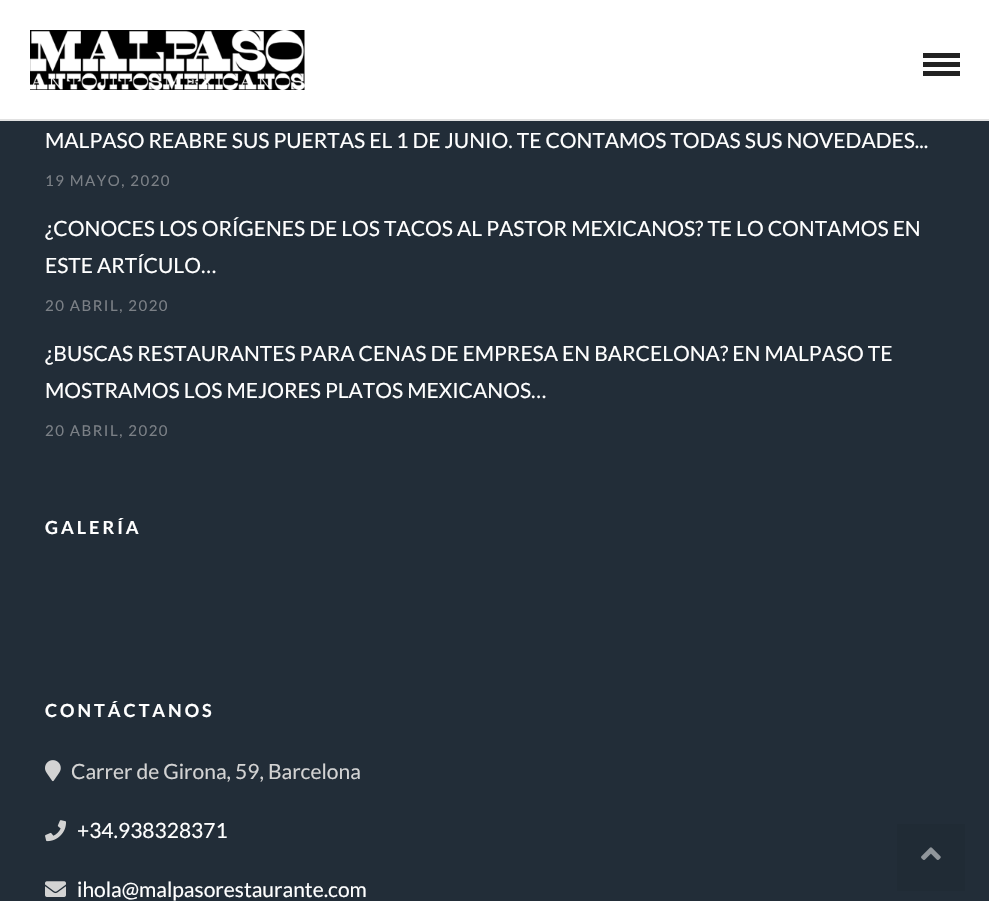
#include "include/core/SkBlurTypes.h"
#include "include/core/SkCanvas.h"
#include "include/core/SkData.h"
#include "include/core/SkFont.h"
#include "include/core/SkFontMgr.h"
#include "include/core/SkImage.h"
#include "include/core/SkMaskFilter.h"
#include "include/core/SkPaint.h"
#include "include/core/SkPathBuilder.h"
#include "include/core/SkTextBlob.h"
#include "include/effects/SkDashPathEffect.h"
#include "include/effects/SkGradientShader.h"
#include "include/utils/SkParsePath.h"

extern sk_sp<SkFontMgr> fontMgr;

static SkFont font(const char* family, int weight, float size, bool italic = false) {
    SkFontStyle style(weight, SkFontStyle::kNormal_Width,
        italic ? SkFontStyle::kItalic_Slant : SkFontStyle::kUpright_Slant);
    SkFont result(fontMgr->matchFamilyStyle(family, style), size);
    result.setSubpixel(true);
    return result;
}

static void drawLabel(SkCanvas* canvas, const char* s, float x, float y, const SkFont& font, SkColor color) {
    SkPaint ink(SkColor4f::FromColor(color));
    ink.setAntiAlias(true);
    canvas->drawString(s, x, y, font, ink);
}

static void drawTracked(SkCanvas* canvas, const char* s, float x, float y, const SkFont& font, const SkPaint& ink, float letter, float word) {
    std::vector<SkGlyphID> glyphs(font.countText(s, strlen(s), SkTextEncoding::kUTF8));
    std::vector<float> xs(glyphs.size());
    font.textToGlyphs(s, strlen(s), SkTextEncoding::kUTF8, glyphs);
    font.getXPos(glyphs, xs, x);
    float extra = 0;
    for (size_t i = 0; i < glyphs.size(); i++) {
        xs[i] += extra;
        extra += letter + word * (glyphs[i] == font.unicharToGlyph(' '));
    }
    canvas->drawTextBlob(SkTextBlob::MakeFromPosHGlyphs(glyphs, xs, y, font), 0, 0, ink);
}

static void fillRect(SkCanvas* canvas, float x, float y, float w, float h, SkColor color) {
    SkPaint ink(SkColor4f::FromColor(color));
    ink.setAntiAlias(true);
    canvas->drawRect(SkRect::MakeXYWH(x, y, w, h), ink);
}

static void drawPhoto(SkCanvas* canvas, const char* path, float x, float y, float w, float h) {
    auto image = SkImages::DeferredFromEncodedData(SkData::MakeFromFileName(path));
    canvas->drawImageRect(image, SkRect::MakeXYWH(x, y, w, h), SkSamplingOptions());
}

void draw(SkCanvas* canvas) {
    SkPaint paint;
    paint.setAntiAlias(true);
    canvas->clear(0xFF222D38);
    fillRect(canvas, 0, 0, 989, 119, 0xFFFFFFFF);
    fillRect(canvas, 0, 119, 989, 2, 0xFFE1E1E1);
    drawPhoto(canvas, "assets/img1.png", 30, 30, 275, 60);
    fillRect(canvas, 923, 53, 37, 5, 0xFF222222);
    fillRect(canvas, 923, 62, 37, 5, 0xFF222222);
    fillRect(canvas, 923, 71, 37, 5, 0xFF222222);
    SkFont font1 = font("Lato", 400, 21);
    drawLabel(canvas, "MALPASO REABRE SUS PUERTAS EL 1 DE JUNIO. TE CONTAMOS TODAS SUS NOVEDADES...", 45, 148, font1, 0xFFFFFFFF);
    SkFont font2 = font("Lato", 400, 15);
    paint.setColor(0xFF7B8086);
    drawTracked(canvas, "19 MAYO, 2020", 45, 186, font2, paint, 1.5f, 0);
    drawLabel(canvas, "¿CONOCES LOS ORÍGENES DE LOS TACOS AL PASTOR MEXICANOS? TE LO CONTAMOS EN", 45, 236, font1, 0xFFFFFFFF);
    drawLabel(canvas, "ESTE ARTÍCULO…", 45, 273, font1, 0xFFFFFFFF);
    drawTracked(canvas, "20 ABRIL, 2020", 45, 311, font2, paint, 1.5f, 0);
    drawLabel(canvas, "¿BUSCAS RESTAURANTES PARA CENAS DE EMPRESA EN BARCELONA? EN MALPASO TE", 45, 361, font1, 0xFFFFFFFF);
    drawLabel(canvas, "MOSTRAMOS LOS MEJORES PLATOS MEXICANOS…", 45, 398, font1, 0xFFFFFFFF);
    drawTracked(canvas, "20 ABRIL, 2020", 45, 436, font2, paint, 1.5f, 0);
    SkFont font3 = font("Lato", 700, 18);
    paint.setColor(0xFFFFFFFF);
    drawTracked(canvas, "GALERÍA", 45, 534, font3, paint, 3, 0);
    drawTracked(canvas, "CONTÁCTANOS", 45, 717, font3, paint, 3, 0);
    drawPhoto(canvas, "assets/img2.png", 45, 760, 16, 22);
    drawLabel(canvas, "Carrer de Girona, 59, Barcelona", 71, 779, font1, 0xFFD3D3D3);
    drawPhoto(canvas, "assets/img3.png", 45, 820, 21, 22);
    drawLabel(canvas, "+34.938328371", 77, 838, font1, 0xFFFFFFFF);
    drawPhoto(canvas, "assets/img4.png", 45, 881, 21, 16);
    drawLabel(canvas, "ihola@malpasorestaurante.com", 77, 897, font1, 0xFFFFFFFF);
    fillRect(canvas, 897, 824, 68, 67, 0xFF202B35);
    drawPhoto(canvas, "assets/img5.png", 921, 847, 20, 13);
}
